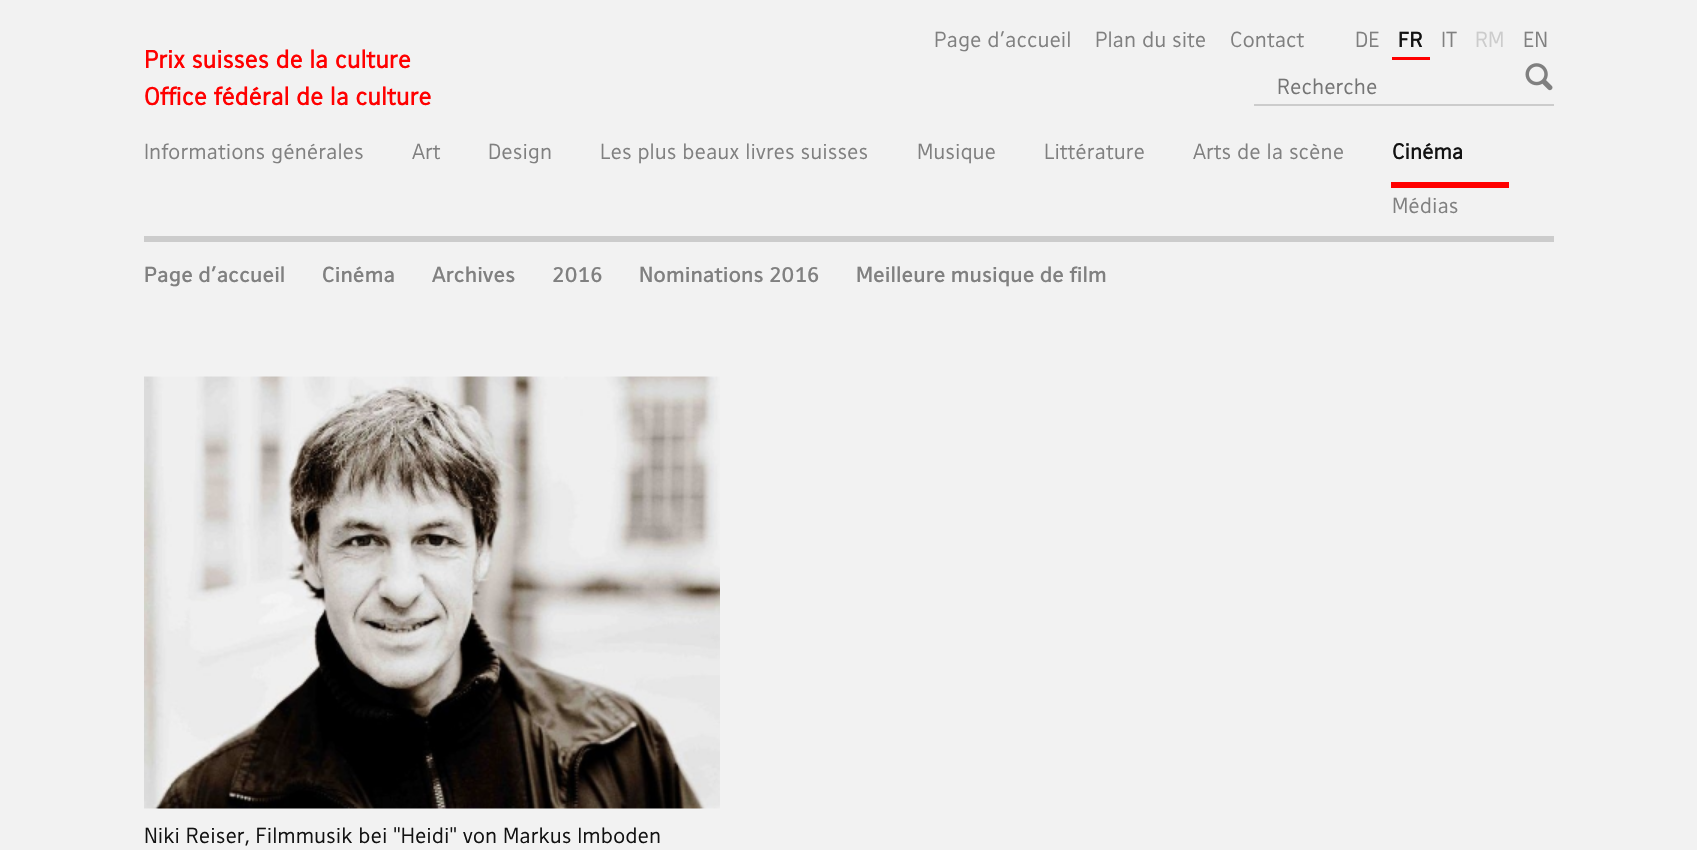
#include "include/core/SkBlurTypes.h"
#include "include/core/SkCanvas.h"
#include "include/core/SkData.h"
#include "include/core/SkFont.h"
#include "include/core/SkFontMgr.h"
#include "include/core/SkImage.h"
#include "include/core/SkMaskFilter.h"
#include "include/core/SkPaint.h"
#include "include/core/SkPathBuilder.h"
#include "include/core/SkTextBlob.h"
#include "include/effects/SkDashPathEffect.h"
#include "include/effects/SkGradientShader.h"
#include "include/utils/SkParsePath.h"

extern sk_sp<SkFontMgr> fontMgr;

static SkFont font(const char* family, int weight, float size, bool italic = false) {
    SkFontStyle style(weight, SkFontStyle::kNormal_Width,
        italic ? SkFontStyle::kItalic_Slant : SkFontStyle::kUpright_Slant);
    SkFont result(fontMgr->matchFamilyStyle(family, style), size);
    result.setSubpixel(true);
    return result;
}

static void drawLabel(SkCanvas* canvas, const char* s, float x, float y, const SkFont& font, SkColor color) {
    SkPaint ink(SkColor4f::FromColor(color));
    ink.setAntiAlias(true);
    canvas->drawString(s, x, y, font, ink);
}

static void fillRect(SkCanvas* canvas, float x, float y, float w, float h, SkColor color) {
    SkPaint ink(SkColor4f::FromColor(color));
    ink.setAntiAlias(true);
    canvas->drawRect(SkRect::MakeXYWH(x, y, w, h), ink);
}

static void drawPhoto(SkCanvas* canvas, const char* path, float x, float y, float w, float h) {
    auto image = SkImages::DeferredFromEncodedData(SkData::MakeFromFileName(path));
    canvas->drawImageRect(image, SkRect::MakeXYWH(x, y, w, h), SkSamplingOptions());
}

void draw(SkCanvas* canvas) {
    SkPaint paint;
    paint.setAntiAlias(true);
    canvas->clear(0xFFF2F2F2);
    SkFont font1 = font("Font", 400, 21);
    drawLabel(canvas, "Page d'accueil", 934, 47, font1, 0xFF808080);
    drawLabel(canvas, "Plan du site", 1095, 47, font1, 0xFF808080);
    drawLabel(canvas, "Contact", 1230, 47, font1, 0xFF808080);
    drawLabel(canvas, "DE", 1355, 47, font1, 0xFF808080);
    SkFont font2 = font("Font", 700, 21);
    drawLabel(canvas, "FR", 1398, 47, font2, 0xFF121212);
    fillRect(canvas, 1392, 57, 38, 3, 0xFFFF0000);
    drawLabel(canvas, "IT", 1441, 47, font1, 0xFF808080);
    drawLabel(canvas, "RM", 1475, 47, font1, 0xFFCCCCCC);
    drawLabel(canvas, "EN", 1523, 47, font1, 0xFF808080);
    SkFont font3 = font("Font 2", 700, 24);
    drawLabel(canvas, "Prix suisses de la culture", 144, 68, font3, 0xFFFF0000);
    drawLabel(canvas, "Office fédéral de la culture", 144, 105, font3, 0xFFFF0000);
    fillRect(canvas, 1254, 104, 300, 2, 0xFFCCCCCC);
    drawLabel(canvas, "Recherche", 1277, 94, font1, 0xFF757575);
    drawPhoto(canvas, "assets/img1.png", 1525, 63, 28, 28);
    fillRect(canvas, 144, 236, 1410, 6, 0xFFCCCCCC);
    drawLabel(canvas, "Informations générales", 144, 159, font1, 0xFF808080);
    drawLabel(canvas, "Art", 412, 159, font1, 0xFF808080);
    drawLabel(canvas, "Design", 488, 159, font1, 0xFF808080);
    drawLabel(canvas, "Les plus beaux livres suisses", 600, 159, font1, 0xFF808080);
    drawLabel(canvas, "Musique", 917, 159, font1, 0xFF808080);
    drawLabel(canvas, "Littérature", 1044, 159, font1, 0xFF808080);
    drawLabel(canvas, "Arts de la scène", 1193, 159, font1, 0xFF808080);
    SkFont font4 = font("Font 2", 700, 21);
    drawLabel(canvas, "Cinéma", 1392, 159, font4, 0xFF121212);
    fillRect(canvas, 1391, 182, 118, 6, 0xFFFF0000);
    drawLabel(canvas, "Médias", 1392, 213, font1, 0xFF808080);
    drawLabel(canvas, "Page d'accueil", 144, 282, font2, 0xFF808080);
    drawLabel(canvas, "Cinéma", 322, 282, font2, 0xFF808080);
    drawLabel(canvas, "Archives", 432, 282, font2, 0xFF808080);
    drawLabel(canvas, "2016", 552, 282, font2, 0xFF808080);
    drawLabel(canvas, "Nominations 2016", 639, 282, font2, 0xFF808080);
    drawLabel(canvas, "Meilleure musique de film", 856, 282, font2, 0xFF808080);
    drawPhoto(canvas, "assets/img2.png", 144, 376, 576, 433);
    drawLabel(canvas, "Niki Reiser, Filmmusik bei \"Heidi\" von Markus Imboden", 144, 843, font1, 0xFF121212);
}
